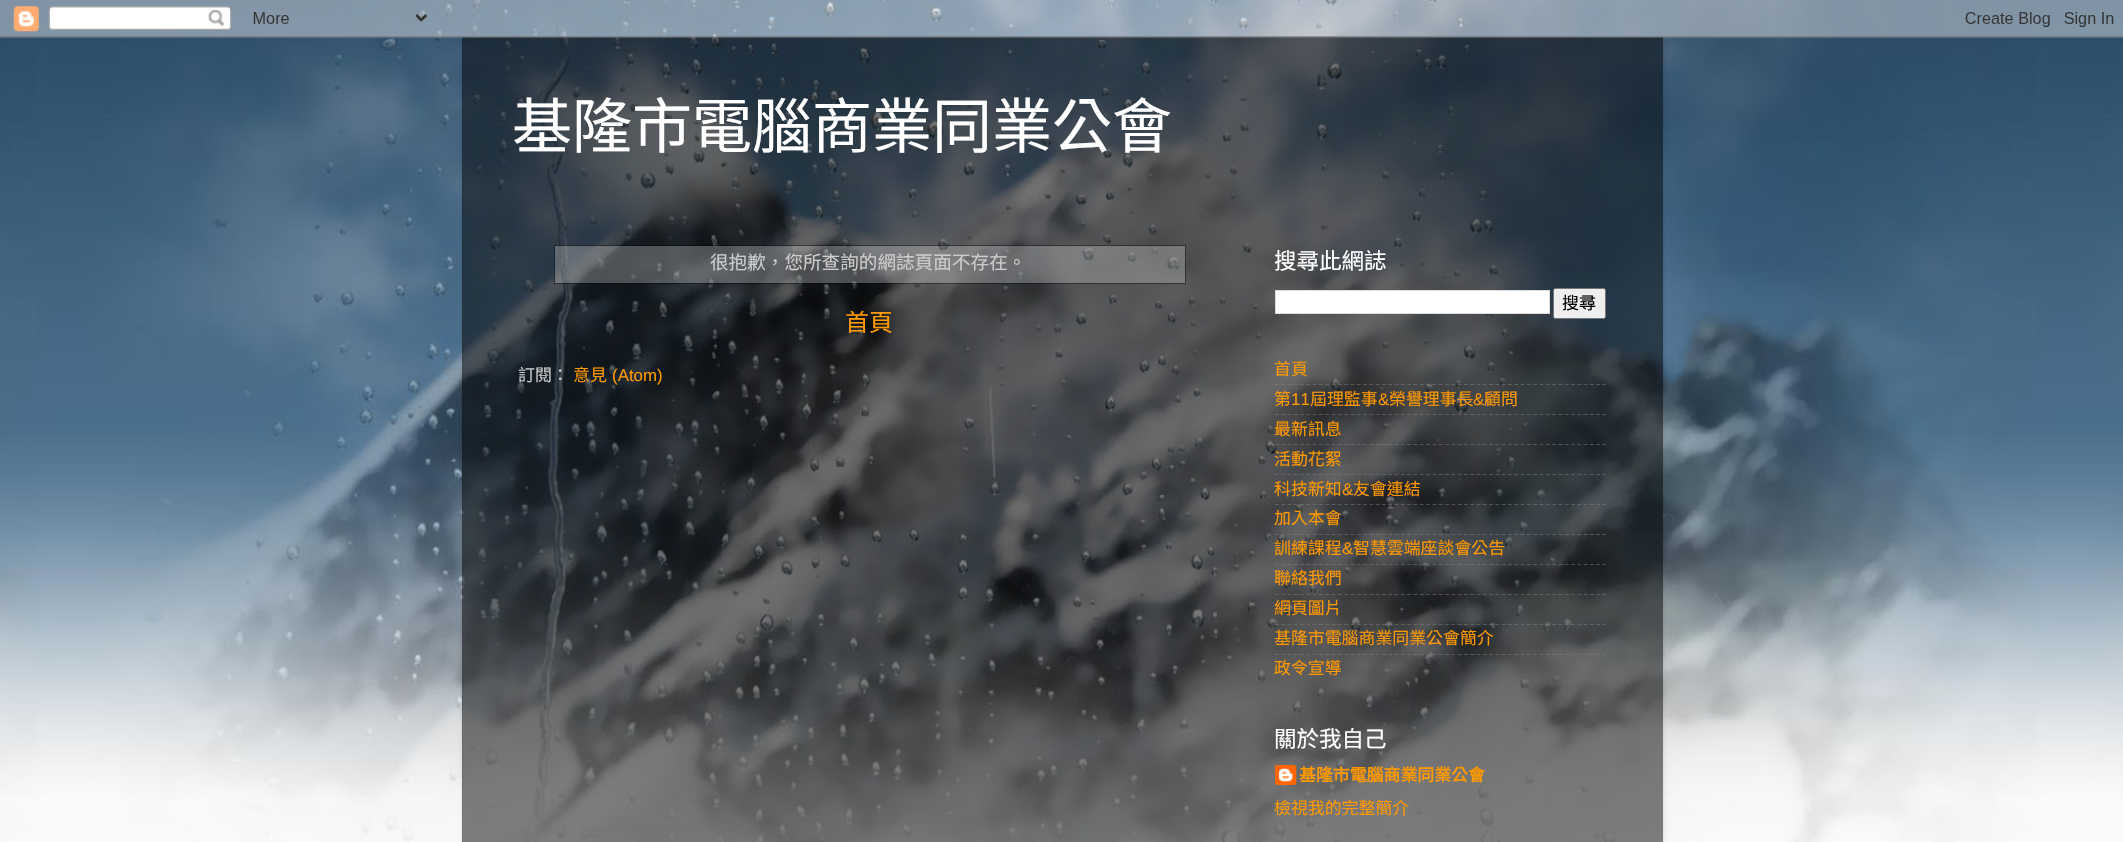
#include "include/core/SkBlurTypes.h"
#include "include/core/SkCanvas.h"
#include "include/core/SkData.h"
#include "include/core/SkFont.h"
#include "include/core/SkFontMgr.h"
#include "include/core/SkImage.h"
#include "include/core/SkMaskFilter.h"
#include "include/core/SkPaint.h"
#include "include/core/SkPathBuilder.h"
#include "include/core/SkTextBlob.h"
#include "include/effects/SkDashPathEffect.h"
#include "include/effects/SkGradientShader.h"
#include "include/utils/SkParsePath.h"

extern sk_sp<SkFontMgr> fontMgr;

static SkFont font(const char* family, int weight, float size, bool italic = false) {
    SkFontStyle style(weight, SkFontStyle::kNormal_Width,
        italic ? SkFontStyle::kItalic_Slant : SkFontStyle::kUpright_Slant);
    SkFont result(fontMgr->matchFamilyStyle(family, style), size);
    result.setSubpixel(true);
    return result;
}

static void drawLabel(SkCanvas* canvas, const char* s, float x, float y, const SkFont& font, SkColor color) {
    SkPaint ink(SkColor4f::FromColor(color));
    ink.setAntiAlias(true);
    canvas->drawString(s, x, y, font, ink);
}

static void fillRect(SkCanvas* canvas, float x, float y, float w, float h, SkColor color) {
    SkPaint ink(SkColor4f::FromColor(color));
    ink.setAntiAlias(true);
    canvas->drawRect(SkRect::MakeXYWH(x, y, w, h), ink);
}

static void drawPhoto(SkCanvas* canvas, const char* path, float x, float y, float w, float h) {
    auto image = SkImages::DeferredFromEncodedData(SkData::MakeFromFileName(path));
    canvas->drawImageRect(image, SkRect::MakeXYWH(x, y, w, h), SkSamplingOptions());
}

static SkPath parsePath(const char* data, bool evenOdd = false) {
    SkPath result = *SkParsePath::FromSVGString(data);
    if (evenOdd) result.setFillType(SkPathFillType::kEvenOdd);
    return result;
}

void draw(SkCanvas* canvas) {
    SkPaint paint;
    paint.setAntiAlias(true);
    canvas->clear(0xFFFFFFFF);
    drawPhoto(canvas, "assets/img1.png", 0, 0, 2123, 842);
    canvas->save();
    canvas->clipPath(parsePath("M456 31H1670V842H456ZM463 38H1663V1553H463Z", true), true);
    paint.setColor(0x26000000);
    paint.setMaskFilter(SkMaskFilter::MakeBlur(kNormal_SkBlurStyle, 2));
    canvas->drawRect(SkRect::MakeXYWH(463, 38, 1200, 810), paint);
    paint.setMaskFilter(nullptr);
    canvas->restore();
    fillRect(canvas, 462, 37, 1201, 805, 0x80000000);
    drawPhoto(canvas, "assets/img2.png", 0, 0, 2123, 38);
    SkFont font1 = font("Noto Sans CJK TC", 400, 60);
    drawLabel(canvas, "基隆市電腦商業同業公會", 512, 148, font1, 0xFFFFFFFF);
    paint.setStroke(true);
    paint.setStrokeWidth(1);
    paint.setColor(0x66000000);
    canvas->drawRect(SkRect::MakeXYWH(554.5f, 245.5f, 631, 38), paint);
    fillRect(canvas, 555, 246, 630, 37, 0x52CCCCCC);
    SkFont font2 = font("Noto Sans CJK TC", 400, 18.6f);
    drawLabel(canvas, "很抱歉，您所查詢的網誌頁面不存在。", 710, 269, font2, 0xFFCCCCCC);
    SkFont font3 = font("Noto Sans CJK TC", 400, 24);
    drawLabel(canvas, "首頁", 845, 331, font3, 0xFFFF9900);
    SkFont font4 = font("Noto Sans CJK TC", 400, 16.9f);
    drawLabel(canvas, "訂閱：", 518, 381, font4, 0xFFCCCCCC);
    drawLabel(canvas, "意見", 573, 381, font4, 0xFFFF9900);
    SkFont font5 = font("Liberation Sans", 400, 16.9f);
    drawLabel(canvas, "(Atom)", 612, 381, font5, 0xFFFF9900);
    SkFont font6 = font("Noto Sans CJK TC", 400, 22.5f);
    drawLabel(canvas, "搜尋此網誌", 1274, 269, font6, 0xFFFFFFFF);
    paint.setStroke(false);
    paint.setColor(0xFFFFFFFF);
    canvas->drawRect(SkRect::MakeXYWH(1275.5f, 290.5f, 274, 23), paint);
    paint.setStroke(true);
    paint.setColor(0xFFDDDDDD);
    canvas->drawRect(SkRect::MakeXYWH(1275.5f, 290.5f, 274, 23), paint);
    paint.setStroke(false);
    paint.setColor(0xFFEFEFEF);
    canvas->drawRoundRect(SkRect::MakeXYWH(1553.5f, 288.5f, 52, 30), 2, 2, paint);
    paint.setStroke(true);
    paint.setColor(0xFF767676);
    canvas->drawRoundRect(SkRect::MakeXYWH(1553.5f, 288.5f, 52, 30), 2, 2, paint);
    SkFont font7 = font("Noto Sans CJK TC", 400, 17);
    drawLabel(canvas, "搜尋", 1562, 309, font7, 0xFF000000);
    drawLabel(canvas, "首頁", 1274, 375, font4, 0xFFFF9900);
    paint.setStrokeWidth(1.2f);
    paint.setColor(0x80808080);
    paint.setPathEffect(SkDashPathEffect::Make({{3.75f, 2.55f}}, 0));
    canvas->drawPath(parsePath("M1275 384.5H1606"), paint);
    paint.setPathEffect(nullptr);
    drawLabel(canvas, "第", 1274, 405, font4, 0xFFFF9900);
    drawLabel(canvas, "11", 1291, 405, font5, 0xFFFF9900);
    drawLabel(canvas, "屆理監事", 1310, 405, font4, 0xFFFF9900);
    drawLabel(canvas, "&", 1378, 405, font5, 0xFFFF9900);
    drawLabel(canvas, "榮譽理事長", 1389, 405, font4, 0xFFFF9900);
    drawLabel(canvas, "&", 1473, 405, font5, 0xFFFF9900);
    drawLabel(canvas, "顧問", 1484, 405, font4, 0xFFFF9900);
    paint.setPathEffect(SkDashPathEffect::Make({{3.75f, 2.55f}}, 0));
    canvas->drawPath(parsePath("M1275 414.5H1606"), paint);
    paint.setPathEffect(nullptr);
    drawLabel(canvas, "最新訊息", 1274, 435, font4, 0xFFFF9900);
    paint.setPathEffect(SkDashPathEffect::Make({{3.75f, 2.55f}}, 0));
    canvas->drawPath(parsePath("M1275 444.5H1606"), paint);
    paint.setPathEffect(nullptr);
    drawLabel(canvas, "活動花絮", 1274, 465, font4, 0xFFFF9900);
    paint.setPathEffect(SkDashPathEffect::Make({{3.75f, 2.55f}}, 0));
    canvas->drawPath(parsePath("M1275 474.5H1606"), paint);
    paint.setPathEffect(nullptr);
    drawLabel(canvas, "科技新知", 1274, 495, font4, 0xFFFF9900);
    drawLabel(canvas, "&", 1342, 495, font5, 0xFFFF9900);
    drawLabel(canvas, "友會連結", 1353, 495, font4, 0xFFFF9900);
    paint.setPathEffect(SkDashPathEffect::Make({{3.75f, 2.55f}}, 0));
    canvas->drawPath(parsePath("M1275 504.5H1606"), paint);
    paint.setPathEffect(nullptr);
    drawLabel(canvas, "加入本會", 1274, 524, font4, 0xFFFF9900);
    paint.setPathEffect(SkDashPathEffect::Make({{3.75f, 2.55f}}, 0));
    canvas->drawPath(parsePath("M1275 534.5H1606"), paint);
    paint.setPathEffect(nullptr);
    drawLabel(canvas, "訓練課程", 1274, 554, font4, 0xFFFF9900);
    drawLabel(canvas, "&", 1342, 554, font5, 0xFFFF9900);
    drawLabel(canvas, "智慧雲端座談會公告", 1353, 554, font4, 0xFFFF9900);
    paint.setPathEffect(SkDashPathEffect::Make({{3.75f, 2.55f}}, 0));
    canvas->drawPath(parsePath("M1275 564.5H1606"), paint);
    paint.setPathEffect(nullptr);
    drawLabel(canvas, "聯絡我們", 1274, 584, font4, 0xFFFF9900);
    paint.setPathEffect(SkDashPathEffect::Make({{3.75f, 2.55f}}, 0));
    canvas->drawPath(parsePath("M1275 594.5H1606"), paint);
    paint.setPathEffect(nullptr);
    drawLabel(canvas, "網頁圖片", 1274, 614, font4, 0xFFFF9900);
    paint.setPathEffect(SkDashPathEffect::Make({{3.75f, 2.55f}}, 0));
    canvas->drawPath(parsePath("M1275 624.5H1606"), paint);
    paint.setPathEffect(nullptr);
    drawLabel(canvas, "基隆市電腦商業同業公會簡介", 1274, 644, font4, 0xFFFF9900);
    paint.setPathEffect(SkDashPathEffect::Make({{3.75f, 2.55f}}, 0));
    canvas->drawPath(parsePath("M1275 654.5H1606"), paint);
    paint.setPathEffect(nullptr);
    drawLabel(canvas, "政令宣導", 1274, 674, font4, 0xFFFF9900);
    drawLabel(canvas, "關於我自己", 1274, 747, font6, 0xFFFFFFFF);
    drawPhoto(canvas, "assets/img3.png", 1275, 765, 22, 20);
    SkFont font8 = font("Noto Sans CJK TC", 700, 16.9f);
    drawLabel(canvas, "基隆市電腦商業同業公會", 1299, 781, font8, 0xFFFF9900);
    drawLabel(canvas, "檢視我的完整簡介", 1274, 814, font4, 0xFFFF9900);
}
